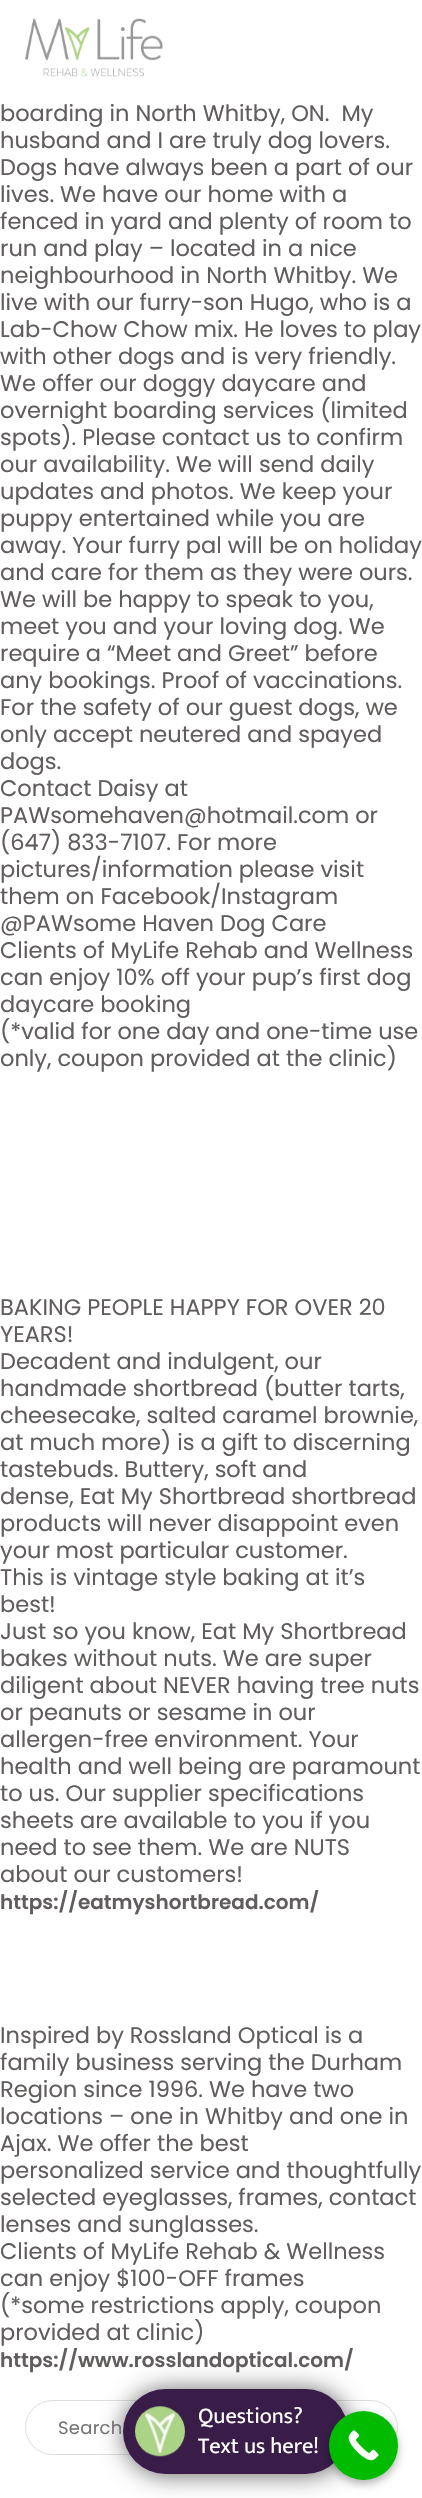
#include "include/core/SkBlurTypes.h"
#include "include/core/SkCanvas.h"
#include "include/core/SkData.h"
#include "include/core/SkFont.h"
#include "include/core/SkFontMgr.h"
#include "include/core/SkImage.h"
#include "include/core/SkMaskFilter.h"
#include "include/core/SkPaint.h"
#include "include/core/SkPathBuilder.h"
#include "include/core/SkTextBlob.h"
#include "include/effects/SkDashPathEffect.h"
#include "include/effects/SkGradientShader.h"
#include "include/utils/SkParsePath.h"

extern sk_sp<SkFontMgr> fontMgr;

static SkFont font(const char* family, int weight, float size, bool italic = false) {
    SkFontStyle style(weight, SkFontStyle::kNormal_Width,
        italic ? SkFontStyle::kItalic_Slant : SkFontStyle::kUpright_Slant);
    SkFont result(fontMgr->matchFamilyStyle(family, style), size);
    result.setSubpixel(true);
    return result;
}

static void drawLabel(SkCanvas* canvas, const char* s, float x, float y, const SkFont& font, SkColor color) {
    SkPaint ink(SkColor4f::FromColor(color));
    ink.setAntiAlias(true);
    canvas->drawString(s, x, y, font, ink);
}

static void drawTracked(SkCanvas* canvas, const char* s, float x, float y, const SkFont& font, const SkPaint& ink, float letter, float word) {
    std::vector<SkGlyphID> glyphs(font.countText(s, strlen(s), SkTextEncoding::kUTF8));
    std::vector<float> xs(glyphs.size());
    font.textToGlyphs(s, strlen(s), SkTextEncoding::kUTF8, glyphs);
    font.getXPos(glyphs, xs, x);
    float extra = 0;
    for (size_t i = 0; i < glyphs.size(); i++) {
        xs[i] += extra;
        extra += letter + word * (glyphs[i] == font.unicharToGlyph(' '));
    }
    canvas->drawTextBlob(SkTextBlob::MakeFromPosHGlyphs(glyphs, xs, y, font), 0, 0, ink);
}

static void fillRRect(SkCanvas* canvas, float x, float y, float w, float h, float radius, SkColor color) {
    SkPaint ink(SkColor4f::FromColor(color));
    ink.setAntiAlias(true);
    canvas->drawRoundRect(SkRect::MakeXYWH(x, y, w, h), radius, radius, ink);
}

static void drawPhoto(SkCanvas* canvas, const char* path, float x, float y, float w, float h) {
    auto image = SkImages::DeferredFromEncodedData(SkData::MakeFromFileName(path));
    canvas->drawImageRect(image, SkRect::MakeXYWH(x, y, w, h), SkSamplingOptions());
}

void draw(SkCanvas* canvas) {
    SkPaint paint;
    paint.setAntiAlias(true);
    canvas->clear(0xFFFFFFFF);
    drawPhoto(canvas, "assets/img1.png", 25, 18, 138, 59);
    SkFont font1 = font("Poppins", 400, 22.5f);
    drawLabel(canvas, "boarding in North Whitby, ON.  My", 0, 121, font1, 0xFF615D5D);
    drawLabel(canvas, "husband and I are truly dog lovers.", 0, 148, font1, 0xFF615D5D);
    drawLabel(canvas, "Dogs have always been a part of our", 0, 175, font1, 0xFF615D5D);
    drawLabel(canvas, "lives. We have our home with a", 0, 202, font1, 0xFF615D5D);
    drawLabel(canvas, "fenced in yard and plenty of room to", 0, 229, font1, 0xFF615D5D);
    drawLabel(canvas, "run and play – located in a nice", 0, 256, font1, 0xFF615D5D);
    drawLabel(canvas, "neighbourhood in North Whitby. We", 0, 283, font1, 0xFF615D5D);
    drawLabel(canvas, "live with our furry-son Hugo, who is a", 0, 310, font1, 0xFF615D5D);
    drawLabel(canvas, "Lab-Chow Chow mix. He loves to play", 0, 337, font1, 0xFF615D5D);
    drawLabel(canvas, "with other dogs and is very friendly.", 0, 364, font1, 0xFF615D5D);
    drawLabel(canvas, "We offer our doggy daycare and", 0, 391, font1, 0xFF615D5D);
    drawLabel(canvas, "overnight boarding services (limited", 0, 418, font1, 0xFF615D5D);
    drawLabel(canvas, "spots). Please contact us to confirm", 0, 445, font1, 0xFF615D5D);
    drawLabel(canvas, "our availability. We will send daily", 0, 472, font1, 0xFF615D5D);
    drawLabel(canvas, "updates and photos. We keep your", 0, 499, font1, 0xFF615D5D);
    drawLabel(canvas, "puppy entertained while you are", 0, 526, font1, 0xFF615D5D);
    drawLabel(canvas, "away. Your furry pal will be on holiday", 0, 553, font1, 0xFF615D5D);
    drawLabel(canvas, "and care for them as they were ours.", 0, 580, font1, 0xFF615D5D);
    drawLabel(canvas, "We will be happy to speak to you,", 0, 607, font1, 0xFF615D5D);
    drawLabel(canvas, "meet you and your loving dog. We", 0, 634, font1, 0xFF615D5D);
    drawLabel(canvas, "require a “Meet and Greet” before", 0, 661, font1, 0xFF615D5D);
    drawLabel(canvas, "any bookings. Proof of vaccinations.", 0, 688, font1, 0xFF615D5D);
    drawLabel(canvas, "For the safety of our guest dogs, we", 0, 715, font1, 0xFF615D5D);
    drawLabel(canvas, "only accept neutered and spayed", 0, 742, font1, 0xFF615D5D);
    drawLabel(canvas, "dogs.", 0, 769, font1, 0xFF615D5D);
    drawLabel(canvas, "Contact Daisy at", 0, 796, font1, 0xFF615D5D);
    drawLabel(canvas, "PAWsomehaven@hotmail.com or", 0, 823, font1, 0xFF615D5D);
    drawLabel(canvas, "(647) 833-7107. For more", 0, 850, font1, 0xFF615D5D);
    drawLabel(canvas, "pictures/information please visit", 0, 877, font1, 0xFF615D5D);
    drawLabel(canvas, "them on Facebook/Instagram", 0, 904, font1, 0xFF615D5D);
    drawLabel(canvas, "@PAWsome Haven Dog Care", 0, 931, font1, 0xFF615D5D);
    drawLabel(canvas, "Clients of MyLife Rehab and Wellness", 0, 958, font1, 0xFF615D5D);
    drawLabel(canvas, "can enjoy 10% off your pup’s first dog", 0, 985, font1, 0xFF615D5D);
    drawLabel(canvas, "daycare booking", 0, 1012, font1, 0xFF615D5D);
    drawLabel(canvas, "(*valid for one day and one-time use", 0, 1039, font1, 0xFF615D5D);
    drawLabel(canvas, "only, coupon provided at the clinic)", 0, 1066, font1, 0xFF615D5D);
    drawLabel(canvas, "BAKING PEOPLE HAPPY FOR OVER 20", 0, 1315, font1, 0xFF615D5D);
    drawLabel(canvas, "YEARS!", 0, 1342, font1, 0xFF615D5D);
    drawLabel(canvas, "Decadent and indulgent, our", 0, 1369, font1, 0xFF615D5D);
    drawLabel(canvas, "handmade shortbread (butter tarts,", 0, 1396, font1, 0xFF615D5D);
    drawLabel(canvas, "cheesecake, salted caramel brownie,", 0, 1423, font1, 0xFF615D5D);
    drawLabel(canvas, "at much more) is a gift to discerning", 0, 1450, font1, 0xFF615D5D);
    drawLabel(canvas, "tastebuds. Buttery, soft and", 0, 1477, font1, 0xFF615D5D);
    drawLabel(canvas, "dense, Eat My Shortbread shortbread", 0, 1504, font1, 0xFF615D5D);
    drawLabel(canvas, "products will never disappoint even", 0, 1531, font1, 0xFF615D5D);
    drawLabel(canvas, "your most particular customer.", 0, 1558, font1, 0xFF615D5D);
    drawLabel(canvas, "This is vintage style baking at it’s", 0, 1585, font1, 0xFF615D5D);
    drawLabel(canvas, "best!", 0, 1612, font1, 0xFF615D5D);
    drawLabel(canvas, "Just so you know, Eat My Shortbread", 0, 1639, font1, 0xFF615D5D);
    drawLabel(canvas, "bakes without nuts. We are super", 0, 1666, font1, 0xFF615D5D);
    drawLabel(canvas, "diligent about NEVER having tree nuts", 0, 1693, font1, 0xFF615D5D);
    drawLabel(canvas, "or peanuts or sesame in our", 0, 1720, font1, 0xFF615D5D);
    drawLabel(canvas, "allergen-free environment. Your", 0, 1747, font1, 0xFF615D5D);
    drawLabel(canvas, "health and well being are paramount", 0, 1774, font1, 0xFF615D5D);
    drawLabel(canvas, "to us. Our supplier specifications", 0, 1801, font1, 0xFF615D5D);
    drawLabel(canvas, "sheets are available to you if you", 0, 1828, font1, 0xFF615D5D);
    drawLabel(canvas, "need to see them. We are NUTS", 0, 1855, font1, 0xFF615D5D);
    drawLabel(canvas, "about our customers!", 0, 1882, font1, 0xFF615D5D);
    SkFont font2 = font("Poppins", 600, 20);
    drawLabel(canvas, "https://eatmyshortbread.com/", 0, 1909, font2, 0xFF615D5D);
    drawLabel(canvas, "Inspired by Rossland Optical is a", 0, 2043, font1, 0xFF615D5D);
    drawLabel(canvas, "family business serving the Durham", 0, 2070, font1, 0xFF615D5D);
    drawLabel(canvas, "Region since 1996. We have two", 0, 2097, font1, 0xFF615D5D);
    drawLabel(canvas, "locations – one in Whitby and one in", 0, 2124, font1, 0xFF615D5D);
    drawLabel(canvas, "Ajax. We offer the best", 0, 2151, font1, 0xFF615D5D);
    drawLabel(canvas, "personalized service and thoughtfully", 0, 2178, font1, 0xFF615D5D);
    drawLabel(canvas, "selected eyeglasses, frames, contact", 0, 2205, font1, 0xFF615D5D);
    drawLabel(canvas, "lenses and sunglasses.", 0, 2232, font1, 0xFF615D5D);
    drawLabel(canvas, "Clients of MyLife Rehab & Wellness", 0, 2259, font1, 0xFF615D5D);
    drawLabel(canvas, "can enjoy $100-OFF frames", 0, 2286, font1, 0xFF615D5D);
    drawLabel(canvas, "(*some restrictions apply, coupon", 0, 2313, font1, 0xFF615D5D);
    drawLabel(canvas, "provided at clinic)", 0, 2340, font1, 0xFF615D5D);
    drawLabel(canvas, "https://www.rosslandoptical.com/", 0, 2367, font2, 0xFF615D5D);
    paint.setStroke(true);
    paint.setStrokeWidth(1);
    paint.setColor(0xFFDDDDDD);
    canvas->drawRoundRect(SkRect::MakeXYWH(25.5f, 2400.5f, 372, 54), 27, 27, paint);
    SkFont font3 = font("Poppins", 400, 18);
    paint.setStroke(false);
    paint.setColor(0xFF757575);
    drawTracked(canvas, "Search", 58, 2434, font3, paint, 0.25f, 0);
    paint.setColor(0xFF646464);
    paint.setMaskFilter(SkMaskFilter::MakeBlur(kNormal_SkBlurStyle, 12.5f));
    canvas->drawRoundRect(SkRect::MakeXYWH(124, 2390, 225, 85), 42.5f, 42.5f, paint);
    paint.setMaskFilter(nullptr);
    fillRRect(canvas, 123, 2389, 225, 85, 42.5f, 0xFF391C48);
    drawPhoto(canvas, "assets/img2.png", 135, 2406, 50, 51);
    SkFont font4 = font("Mukta", 400, 22.5f);
    drawLabel(canvas, "Questions?", 198, 2423, font4, 0xFFFFFFFF);
    drawLabel(canvas, "Text us here!", 198, 2453, font4, 0xFFFFFFFF);
    paint.setColor(0x4D000000);
    paint.setMaskFilter(SkMaskFilter::MakeBlur(kNormal_SkBlurStyle, 4));
    canvas->drawRoundRect(SkRect::MakeXYWH(329, 2415, 69, 69), 34.5f, 34.5f, paint);
    paint.setMaskFilter(nullptr);
    paint.setColor(0xFF00BB00);
    canvas->drawCircle(363.5f, 2445.5f, 34.5f, paint);
    drawPhoto(canvas, "assets/img3.png", 348, 2430, 31, 31);
}
